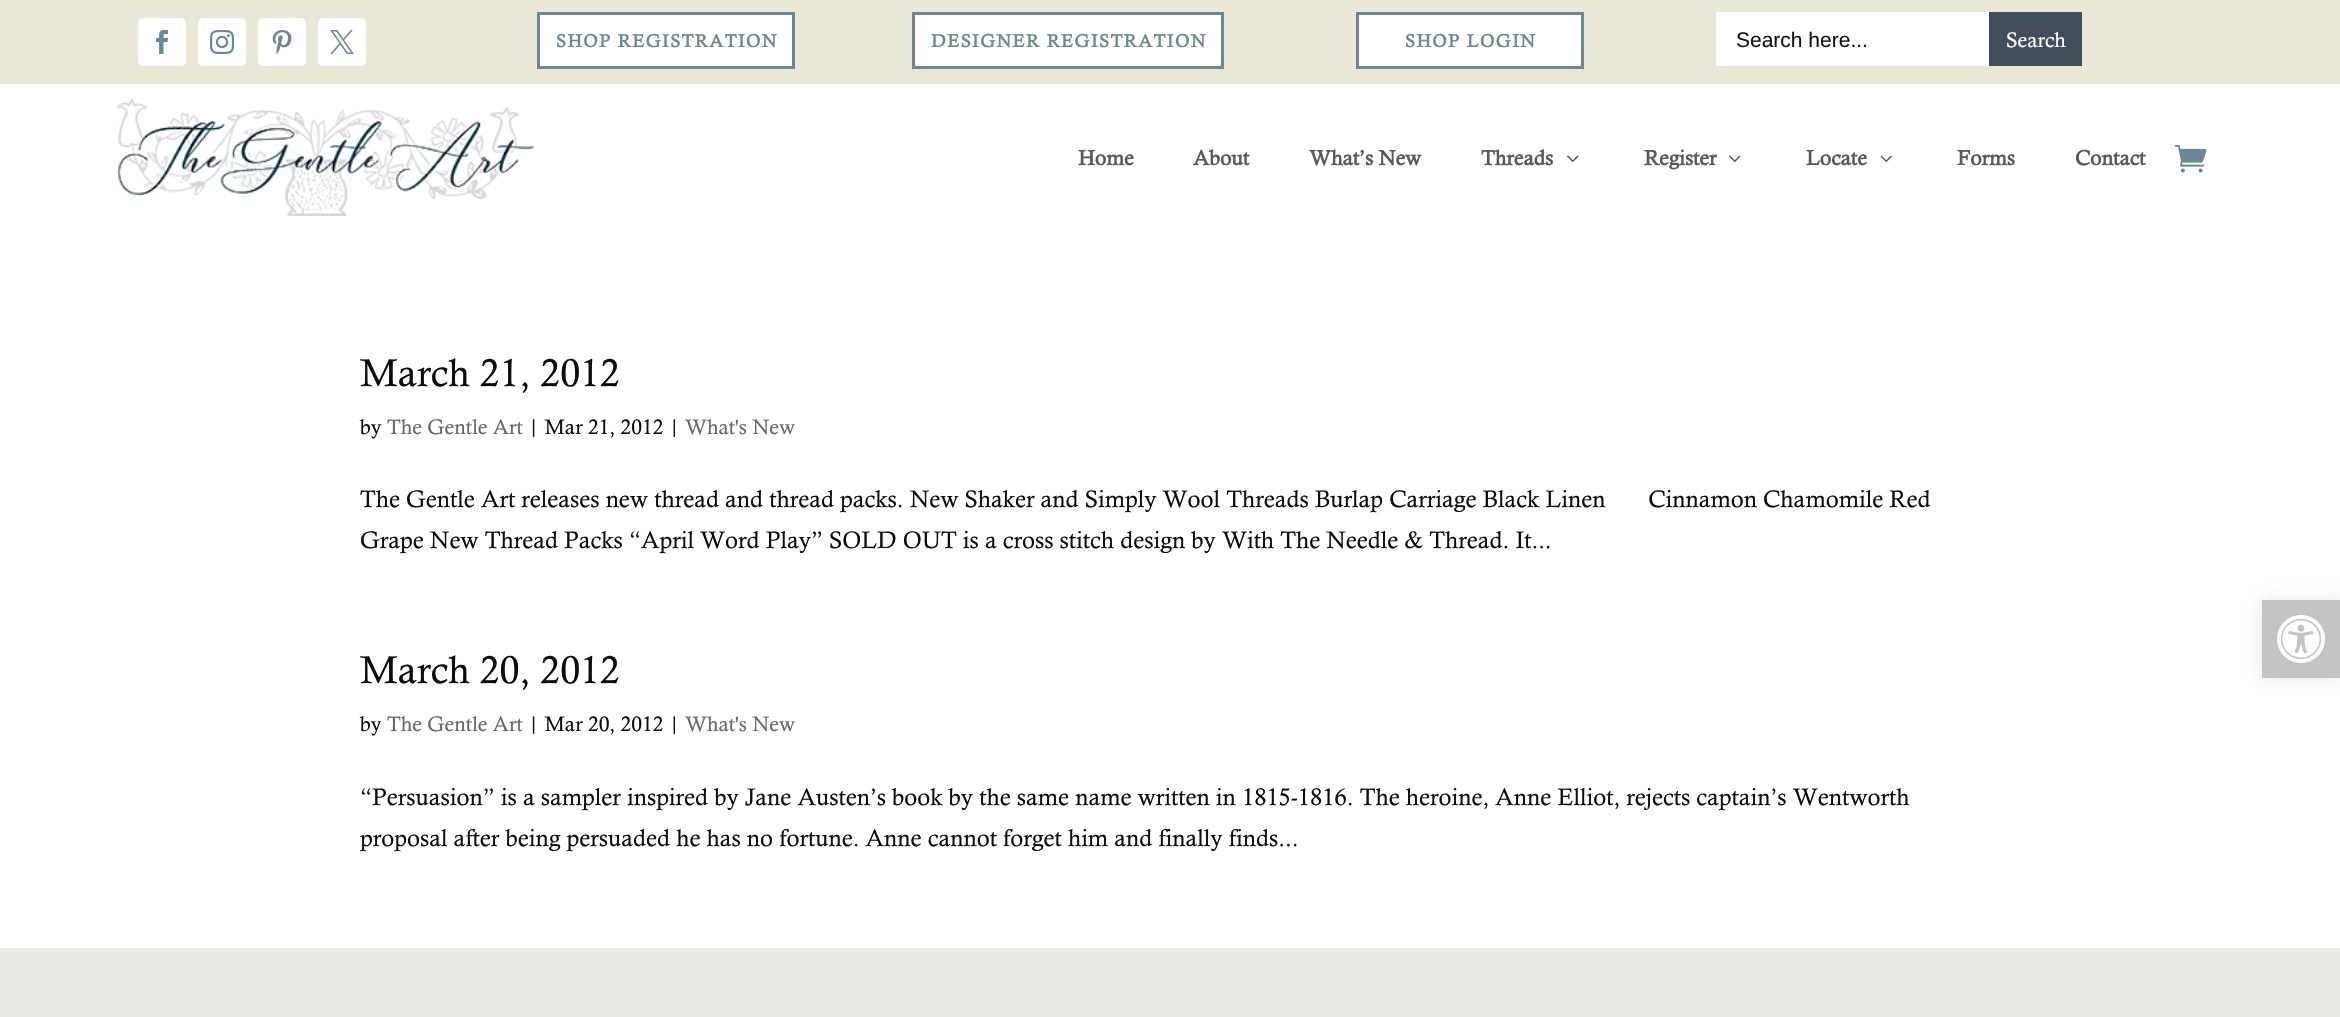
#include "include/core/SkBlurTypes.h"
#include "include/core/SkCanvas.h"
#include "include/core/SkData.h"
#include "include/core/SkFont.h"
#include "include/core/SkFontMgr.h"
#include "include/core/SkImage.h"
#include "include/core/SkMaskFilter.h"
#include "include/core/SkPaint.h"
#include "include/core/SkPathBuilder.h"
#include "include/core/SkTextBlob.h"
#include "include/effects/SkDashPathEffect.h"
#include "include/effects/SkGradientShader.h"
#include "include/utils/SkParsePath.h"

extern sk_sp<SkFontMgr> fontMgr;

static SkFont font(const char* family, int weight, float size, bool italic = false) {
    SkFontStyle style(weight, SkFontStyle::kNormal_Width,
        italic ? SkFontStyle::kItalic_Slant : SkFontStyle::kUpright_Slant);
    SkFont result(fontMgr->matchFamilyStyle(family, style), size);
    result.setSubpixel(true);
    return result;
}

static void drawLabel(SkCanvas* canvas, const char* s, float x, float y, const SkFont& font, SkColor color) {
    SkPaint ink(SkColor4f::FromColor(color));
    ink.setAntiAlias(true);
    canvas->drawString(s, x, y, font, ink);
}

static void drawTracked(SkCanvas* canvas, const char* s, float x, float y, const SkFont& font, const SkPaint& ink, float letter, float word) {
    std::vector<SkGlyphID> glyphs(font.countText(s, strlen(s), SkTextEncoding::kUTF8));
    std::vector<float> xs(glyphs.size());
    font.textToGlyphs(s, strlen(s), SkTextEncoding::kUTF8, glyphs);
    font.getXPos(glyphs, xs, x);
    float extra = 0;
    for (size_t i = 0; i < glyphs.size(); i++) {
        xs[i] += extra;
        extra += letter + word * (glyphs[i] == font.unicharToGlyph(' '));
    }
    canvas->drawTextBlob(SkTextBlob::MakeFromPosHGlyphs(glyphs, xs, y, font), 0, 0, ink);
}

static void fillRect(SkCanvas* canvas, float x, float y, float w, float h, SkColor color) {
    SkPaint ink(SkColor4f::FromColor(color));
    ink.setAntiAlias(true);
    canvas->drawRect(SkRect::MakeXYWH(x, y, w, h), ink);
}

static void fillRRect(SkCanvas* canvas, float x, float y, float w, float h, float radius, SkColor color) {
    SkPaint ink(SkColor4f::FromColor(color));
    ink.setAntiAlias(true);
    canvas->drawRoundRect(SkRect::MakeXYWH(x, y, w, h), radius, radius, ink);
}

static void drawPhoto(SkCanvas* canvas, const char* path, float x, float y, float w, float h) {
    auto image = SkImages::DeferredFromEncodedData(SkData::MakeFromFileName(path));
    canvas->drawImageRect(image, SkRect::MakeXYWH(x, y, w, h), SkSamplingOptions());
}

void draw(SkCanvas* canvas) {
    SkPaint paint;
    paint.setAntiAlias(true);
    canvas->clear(0xFFEAE9E3);
    fillRect(canvas, 0, 0, 2340, 84, 0xFFEBE7D7);
    fillRRect(canvas, 138, 18, 48, 48, 5, 0xFFFFFFFF);
    drawPhoto(canvas, "assets/img1.png", 156, 30, 12, 24);
    fillRRect(canvas, 198, 18, 48, 48, 5, 0xFFFFFFFF);
    drawPhoto(canvas, "assets/img2.png", 210, 30, 24, 24);
    fillRRect(canvas, 258, 18, 48, 48, 5, 0xFFFFFFFF);
    drawPhoto(canvas, "assets/img3.png", 272, 30, 20, 24);
    fillRRect(canvas, 318, 18, 48, 48, 5, 0xFFFFFFFF);
    drawPhoto(canvas, "assets/img4.png", 330, 30, 24, 24);
    paint.setColor(0xFFFFFFFF);
    canvas->drawRect(SkRect::MakeXYWH(538.5f, 13.5f, 255, 54), paint);
    paint.setStroke(true);
    paint.setStrokeWidth(3);
    paint.setColor(0xFF698996);
    canvas->drawRect(SkRect::MakeXYWH(538.5f, 13.5f, 255, 54), paint);
    SkFont font1 = font("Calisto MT", 700, 18);
    paint.setStroke(false);
    drawTracked(canvas, "SHOP REGISTRATION", 556, 47, font1, paint, 1.5f, 0);
    paint.setColor(0xFFFFFFFF);
    canvas->drawRect(SkRect::MakeXYWH(913.5f, 13.5f, 309, 54), paint);
    paint.setStroke(true);
    paint.setColor(0xFF698996);
    canvas->drawRect(SkRect::MakeXYWH(913.5f, 13.5f, 309, 54), paint);
    paint.setStroke(false);
    drawTracked(canvas, "DESIGNER REGISTRATION", 931, 47, font1, paint, 1.5f, 0);
    paint.setColor(0xFFFFFFFF);
    canvas->drawRect(SkRect::MakeXYWH(1357.5f, 13.5f, 225, 54), paint);
    paint.setStroke(true);
    paint.setColor(0xFF698996);
    canvas->drawRect(SkRect::MakeXYWH(1357.5f, 13.5f, 225, 54), paint);
    paint.setStroke(false);
    drawTracked(canvas, "SHOP LOGIN", 1405, 47, font1, paint, 1.5f, 0);
    fillRect(canvas, 1716, 12, 273, 54, 0xFFFFFFFF);
    SkFont font2 = font("Liberation Sans", 400, 21);
    drawLabel(canvas, "Search here...", 1736, 47, font2, 0xFF141414);
    fillRect(canvas, 1989, 12, 93, 54, 0xFF434E5C);
    SkFont font3 = font("Calisto MT", 400, 21);
    drawLabel(canvas, "Search", 2006, 47, font3, 0xFFFFFFFF);
    fillRect(canvas, 0, 84, 2340, 864, 0xFFFFFFFF);
    drawPhoto(canvas, "assets/img5.png", 117, 99, 418, 117);
    SkFont font4 = font("Calisto MT", 700, 21);
    drawLabel(canvas, "Home", 1078, 165, font4, 0xFF595959);
    drawLabel(canvas, "About", 1193, 165, font4, 0xFF595959);
    drawLabel(canvas, "What’s New", 1309, 165, font4, 0xFF595959);
    drawLabel(canvas, "Threads", 1481, 165, font4, 0xFF595959);
    drawPhoto(canvas, "assets/img6.png", 1567, 155, 12, 7);
    drawLabel(canvas, "Register", 1644, 165, font4, 0xFF595959);
    drawPhoto(canvas, "assets/img6.png", 1729, 155, 12, 7);
    drawLabel(canvas, "Locate", 1806, 165, font4, 0xFF595959);
    drawPhoto(canvas, "assets/img7.png", 1880, 155, 12, 7);
    drawLabel(canvas, "Forms", 1957, 165, font4, 0xFF595959);
    drawLabel(canvas, "Contact", 2075, 165, font4, 0xFF595959);
    drawPhoto(canvas, "assets/img8.png", 2175, 144, 32, 29);
    SkFont font5 = font("Calisto MT", 400, 39);
    drawLabel(canvas, "March 21, 2012", 360, 386, font5, 0xFF0D0A14);
    drawLabel(canvas, "by", 360, 434, font3, 0xFF0D0A14);
    drawLabel(canvas, "The Gentle Art", 387, 434, font3, 0xFF666666);
    drawLabel(canvas, "| Mar 21, 2012 |", 528, 434, font3, 0xFF0D0A14);
    drawLabel(canvas, "What's New", 685, 434, font3, 0xFF666666);
    SkFont font6 = font("Calisto MT", 400, 24);
    drawLabel(canvas, "The Gentle Art releases new thread and thread packs. New Shaker and Simply Wool Threads Burlap Carriage Black Linen       Cinnamon Chamomile Red", 360, 507, font6, 0xFF0D0A14);
    drawLabel(canvas, "Grape New Thread Packs “April Word Play” SOLD OUT is a cross stitch design by With The Needle & Thread. It...", 360, 548, font6, 0xFF0D0A14);
    drawLabel(canvas, "March 20, 2012", 360, 683, font5, 0xFF0D0A14);
    drawLabel(canvas, "by", 360, 731, font3, 0xFF0D0A14);
    drawLabel(canvas, "The Gentle Art", 387, 731, font3, 0xFF666666);
    drawLabel(canvas, "| Mar 20, 2012 |", 528, 731, font3, 0xFF0D0A14);
    drawLabel(canvas, "What's New", 685, 731, font3, 0xFF666666);
    drawLabel(canvas, "“Persuasion” is a sampler inspired by Jane Austen’s book by the same name written in 1815-1816. The heroine, Anne Elliot, rejects captain’s Wentworth", 360, 805, font6, 0xFF0D0A14);
    drawLabel(canvas, "proposal after being persuaded he has no fortune. Anne cannot forget him and finally finds...", 360, 846, font6, 0xFF0D0A14);
    paint.setColor(0x1A000000);
    paint.setMaskFilter(SkMaskFilter::MakeBlur(kNormal_SkBlurStyle, 7.5f));
    canvas->drawRect(SkRect::MakeXYWH(2262, 600, 78, 78), paint);
    paint.setMaskFilter(nullptr);
    fillRect(canvas, 2262, 600, 78, 78, 0xFFC4C4C4);
    drawPhoto(canvas, "assets/img9.png", 2277, 615, 48, 48);
}
